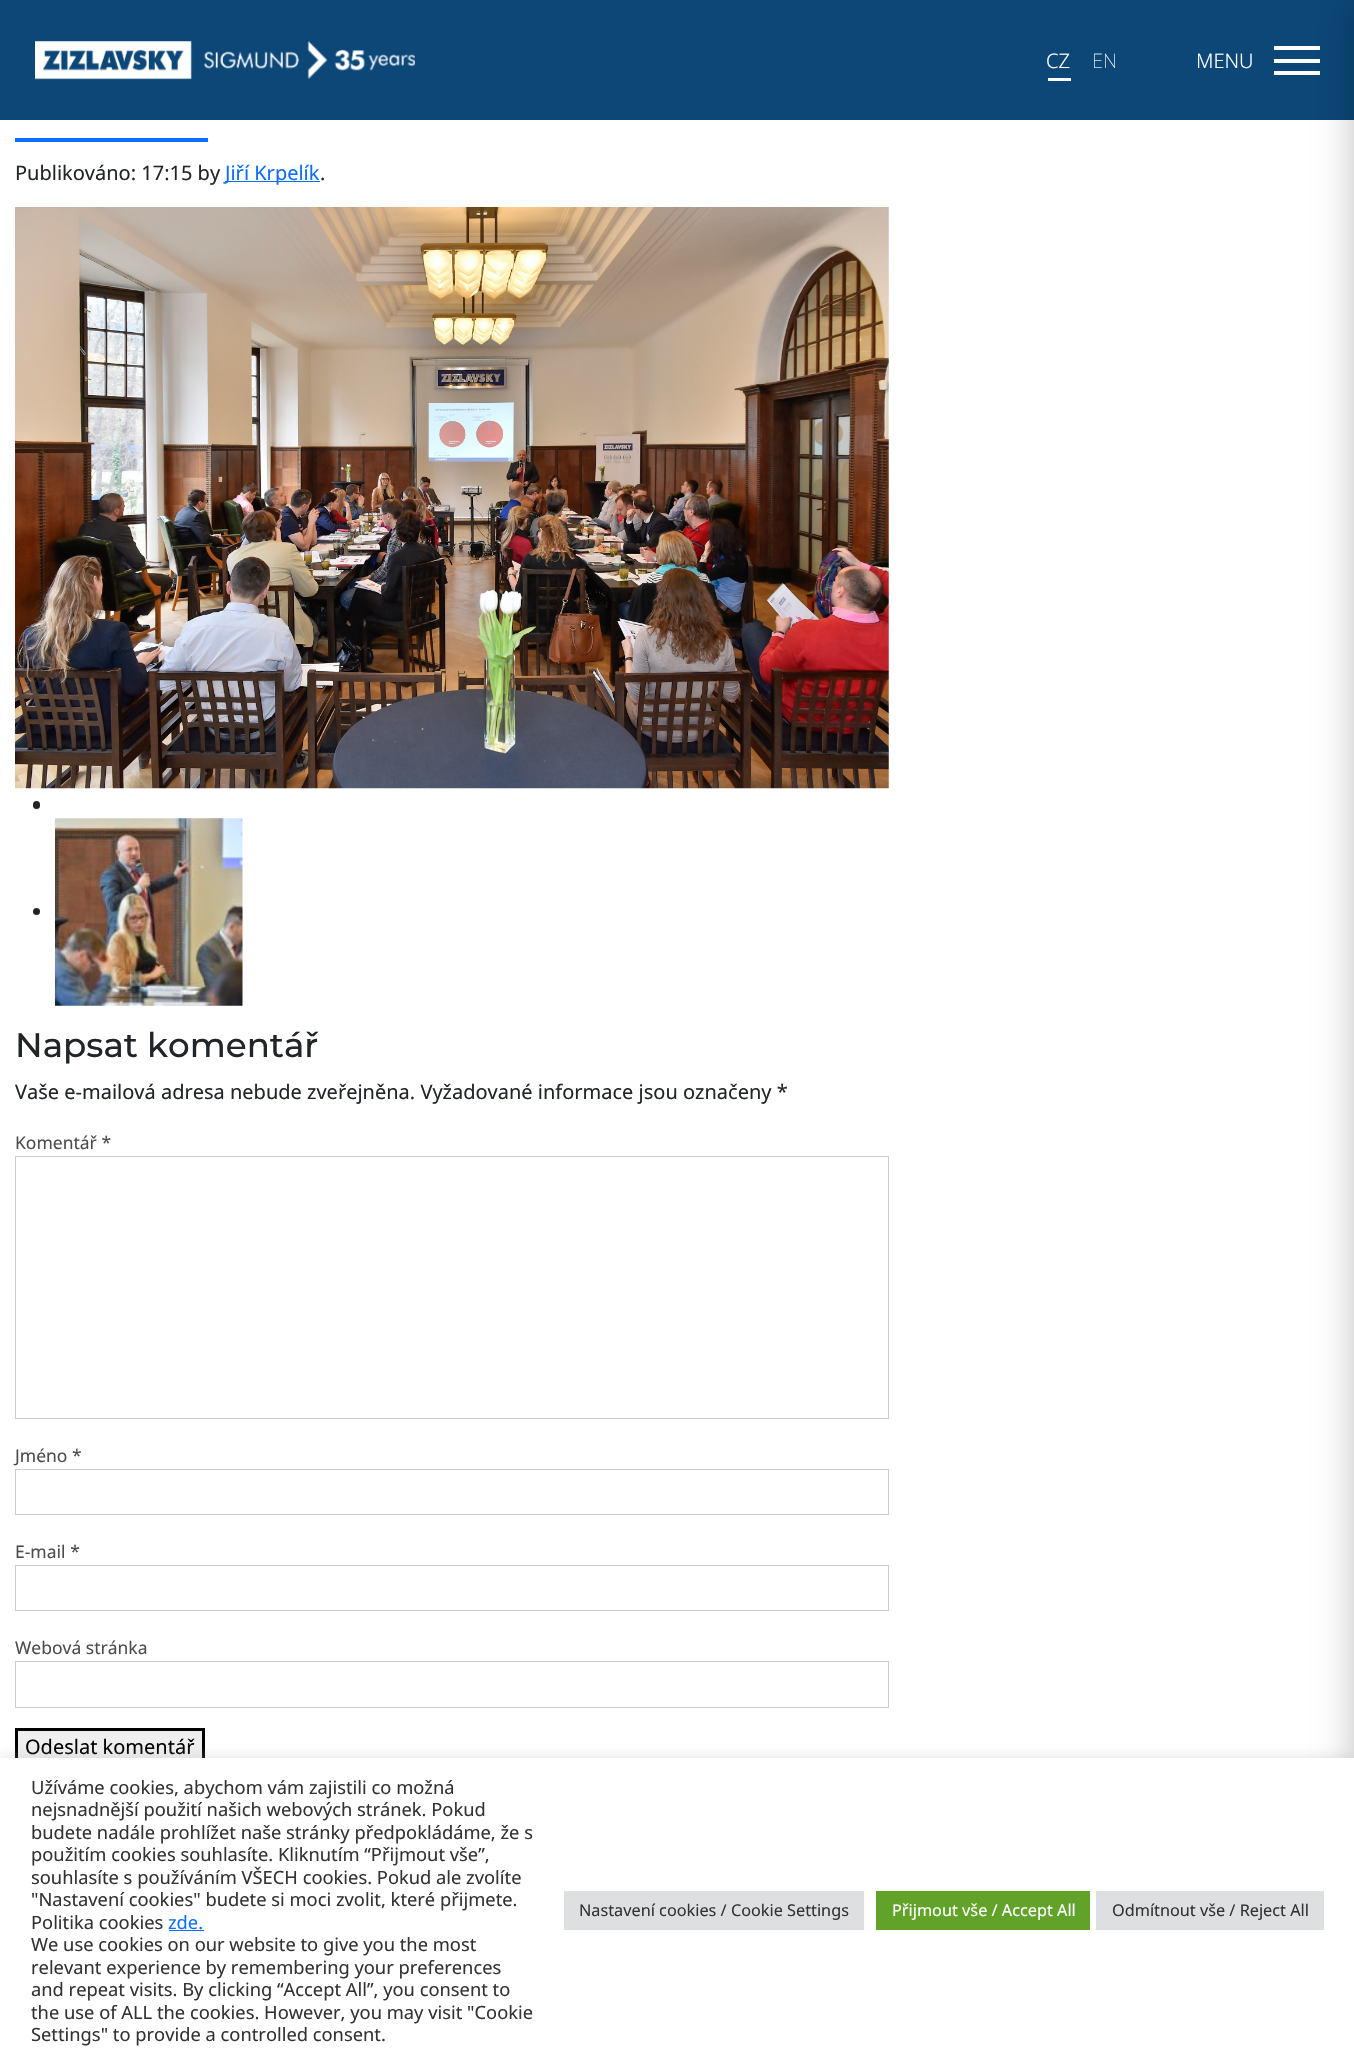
#include "include/core/SkBlurTypes.h"
#include "include/core/SkCanvas.h"
#include "include/core/SkData.h"
#include "include/core/SkFont.h"
#include "include/core/SkFontMgr.h"
#include "include/core/SkImage.h"
#include "include/core/SkMaskFilter.h"
#include "include/core/SkPaint.h"
#include "include/core/SkPathBuilder.h"
#include "include/core/SkTextBlob.h"
#include "include/effects/SkDashPathEffect.h"
#include "include/effects/SkGradientShader.h"
#include "include/utils/SkParsePath.h"

extern sk_sp<SkFontMgr> fontMgr;

static SkFont font(const char* family, int weight, float size, bool italic = false) {
    SkFontStyle style(weight, SkFontStyle::kNormal_Width,
        italic ? SkFontStyle::kItalic_Slant : SkFontStyle::kUpright_Slant);
    SkFont result(fontMgr->matchFamilyStyle(family, style), size);
    result.setSubpixel(true);
    return result;
}

static void drawLabel(SkCanvas* canvas, const char* s, float x, float y, const SkFont& font, SkColor color) {
    SkPaint ink(SkColor4f::FromColor(color));
    ink.setAntiAlias(true);
    canvas->drawString(s, x, y, font, ink);
}

static void fillRect(SkCanvas* canvas, float x, float y, float w, float h, SkColor color) {
    SkPaint ink(SkColor4f::FromColor(color));
    ink.setAntiAlias(true);
    canvas->drawRect(SkRect::MakeXYWH(x, y, w, h), ink);
}

static void fillRRect(SkCanvas* canvas, float x, float y, float w, float h, float radius, SkColor color) {
    SkPaint ink(SkColor4f::FromColor(color));
    ink.setAntiAlias(true);
    canvas->drawRoundRect(SkRect::MakeXYWH(x, y, w, h), radius, radius, ink);
}

static void drawPhoto(SkCanvas* canvas, const char* path, float x, float y, float w, float h) {
    auto image = SkImages::DeferredFromEncodedData(SkData::MakeFromFileName(path));
    canvas->drawImageRect(image, SkRect::MakeXYWH(x, y, w, h), SkSamplingOptions());
}

void draw(SkCanvas* canvas) {
    SkPaint paint;
    paint.setAntiAlias(true);
    canvas->clear(0xFFFFFFFF);
    fillRect(canvas, 0, 0, 1354, 120, 0xFF0C4778);
    drawPhoto(canvas, "assets/img1.png", 35, 41, 380, 39);
    fillRect(canvas, 1048, 78, 23, 3, 0xFFFFFFFF);
    SkFont font1 = font("Noto Sans", 300, 20);
    drawLabel(canvas, "CZ", 1046, 68, font1, 0xFFFFFFFF);
    SkFont font2 = font("Noto Sans", 100, 20);
    drawLabel(canvas, "EN", 1092, 68, font2, 0xFFFFFFFF);
    drawLabel(canvas, "MENU", 1196, 68, font1, 0xFFFFFFFF);
    fillRect(canvas, 1274, 59, 46, 4, 0xFFFFFFFF);
    fillRect(canvas, 1274, 46, 46, 4, 0xFFFFFFFF);
    fillRect(canvas, 1274, 71, 46, 4, 0xFFFFFFFF);
    paint.setColor(0x40000000);
    paint.setMaskFilter(SkMaskFilter::MakeBlur(kNormal_SkBlurStyle, 19));
    canvas->drawRect(SkRect::MakeXYWH(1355, 0, 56, 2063), paint);
    paint.setMaskFilter(nullptr);
    fillRect(canvas, 15, 138, 193, 4, 0xFF0D6EFD);
    SkFont font3 = font("Noto Sans", 400, 20);
    drawLabel(canvas, "Publikováno: 17:15 by", 15, 180, font3, 0xFF212529);
    fillRect(canvas, 225, 181, 95, 1, 0xFF0D6EFD);
    drawLabel(canvas, "Jiří Krpelík", 225, 180, font3, 0xFF0D6EFD);
    drawLabel(canvas, ".", 320, 180, font3, 0xFF212529);
    drawPhoto(canvas, "assets/img2.png", 15, 207, 874, 582);
    fillRRect(canvas, 33, 801, 7, 8, 3.5f, 0xFF212529);
    paint.setColor(0xFF212529);
    canvas->drawCircle(36.5f, 911.5f, 3.5f, paint);
    drawPhoto(canvas, "assets/img3.png", 55, 818, 188, 188);
    SkFont font4 = font("Montserrat", 500, 34.1f);
    drawLabel(canvas, "Napsat komentář", 15, 1057, font4, 0xFF212529);
    drawLabel(canvas, "Vaše e-mailová adresa nebude zveřejněna. Vyžadované informace jsou označeny *", 15, 1099, font3, 0xFF212529);
    SkFont font5 = font("Noto Sans", 400, 17.5f);
    drawLabel(canvas, "Komentář *", 15, 1149, font5, 0xFF4D4C4C);
    paint.setStroke(true);
    paint.setStrokeWidth(1);
    paint.setColor(0xFFCCCCCC);
    canvas->drawRect(SkRect::MakeXYWH(15.5f, 1156.5f, 873, 262), paint);
    drawLabel(canvas, "Jméno *", 15, 1462, font5, 0xFF4D4C4C);
    canvas->drawRect(SkRect::MakeXYWH(15.5f, 1469.5f, 873, 45), paint);
    drawLabel(canvas, "E-mail *", 15, 1558, font5, 0xFF4D4C4C);
    canvas->drawRect(SkRect::MakeXYWH(15.5f, 1565.5f, 873, 45), paint);
    drawLabel(canvas, "Webová stránka", 15, 1654, font5, 0xFF4D4C4C);
    canvas->drawRect(SkRect::MakeXYWH(15.5f, 1661.5f, 873, 46), paint);
    fillRect(canvas, 18, 1731, 184, 27, 0xFFEFEFEF);
    paint.setStrokeWidth(3);
    paint.setColor(0xFF000000);
    canvas->drawRect(SkRect::MakeXYWH(16.5f, 1729.5f, 187, 34), paint);
    drawLabel(canvas, "Odeslat komentář", 25, 1754, font3, 0xFF000000);
    paint.setStroke(false);
    paint.setColor(0x4DACABAB);
    paint.setMaskFilter(SkMaskFilter::MakeBlur(kNormal_SkBlurStyle, 6));
    canvas->drawRect(SkRect::MakeXYWH(0, 1756, 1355, 305), paint);
    paint.setMaskFilter(nullptr);
    fillRect(canvas, 0, 1758, 1354, 304, 0xFFFFFFFF);
    SkFont font6 = font("Noto Sans", 400, 18.3f);
    drawLabel(canvas, "Užíváme cookies, abychom vám zajistili co možná", 31, 1794, font6, 0xFF333333);
    drawLabel(canvas, "nejsnadnější použití našich webových stránek. Pokud", 31, 1816, font6, 0xFF333333);
    drawLabel(canvas, "budete nadále prohlížet naše stránky předpokládáme, že s", 31, 1839, font6, 0xFF333333);
    drawLabel(canvas, "použitím cookies souhlasíte. Kliknutím “Přijmout vše”,", 31, 1861, font6, 0xFF333333);
    drawLabel(canvas, "souhlasíte s používáním VŠECH cookies. Pokud ale zvolíte", 31, 1884, font6, 0xFF333333);
    drawLabel(canvas, "\"Nastavení cookies\" budete si moci zvolit, které přijmete.", 31, 1906, font6, 0xFF333333);
    drawLabel(canvas, "Politika cookies", 31, 1929, font6, 0xFF333333);
    drawLabel(canvas, "zde.", 168, 1929, font6, 0xFF0D6EFD);
    fillRect(canvas, 169, 1930, 35, 1, 0xFF0D6EFD);
    drawLabel(canvas, "We use cookies on our website to give you the most", 31, 1951, font6, 0xFF333333);
    drawLabel(canvas, "relevant experience by remembering your preferences", 31, 1974, font6, 0xFF333333);
    drawLabel(canvas, "and repeat visits. By clicking “Accept All”, you consent to", 31, 1996, font6, 0xFF333333);
    drawLabel(canvas, "the use of ALL the cookies. However, you may visit \"Cookie", 31, 2019, font6, 0xFF333333);
    drawLabel(canvas, "Settings\" to provide a controlled consent.", 31, 2041, font6, 0xFF333333);
    fillRect(canvas, 564, 1891, 300, 39, 0xFFDEDFE0);
    SkFont font7 = font("Noto Sans", 400, 16.25f);
    drawLabel(canvas, "Nastavení cookies / Cookie Settings", 579, 1916, font7, 0xFF333333);
    fillRect(canvas, 876, 1891, 214, 39, 0xFF61A229);
    drawLabel(canvas, "Přijmout vše / Accept All", 892, 1916, font7, 0xFFFFFFFF);
    fillRect(canvas, 1096, 1891, 228, 39, 0xFFDEDFE0);
    drawLabel(canvas, "Odmítnout vše / Reject All", 1112, 1916, font7, 0xFF333333);
}
